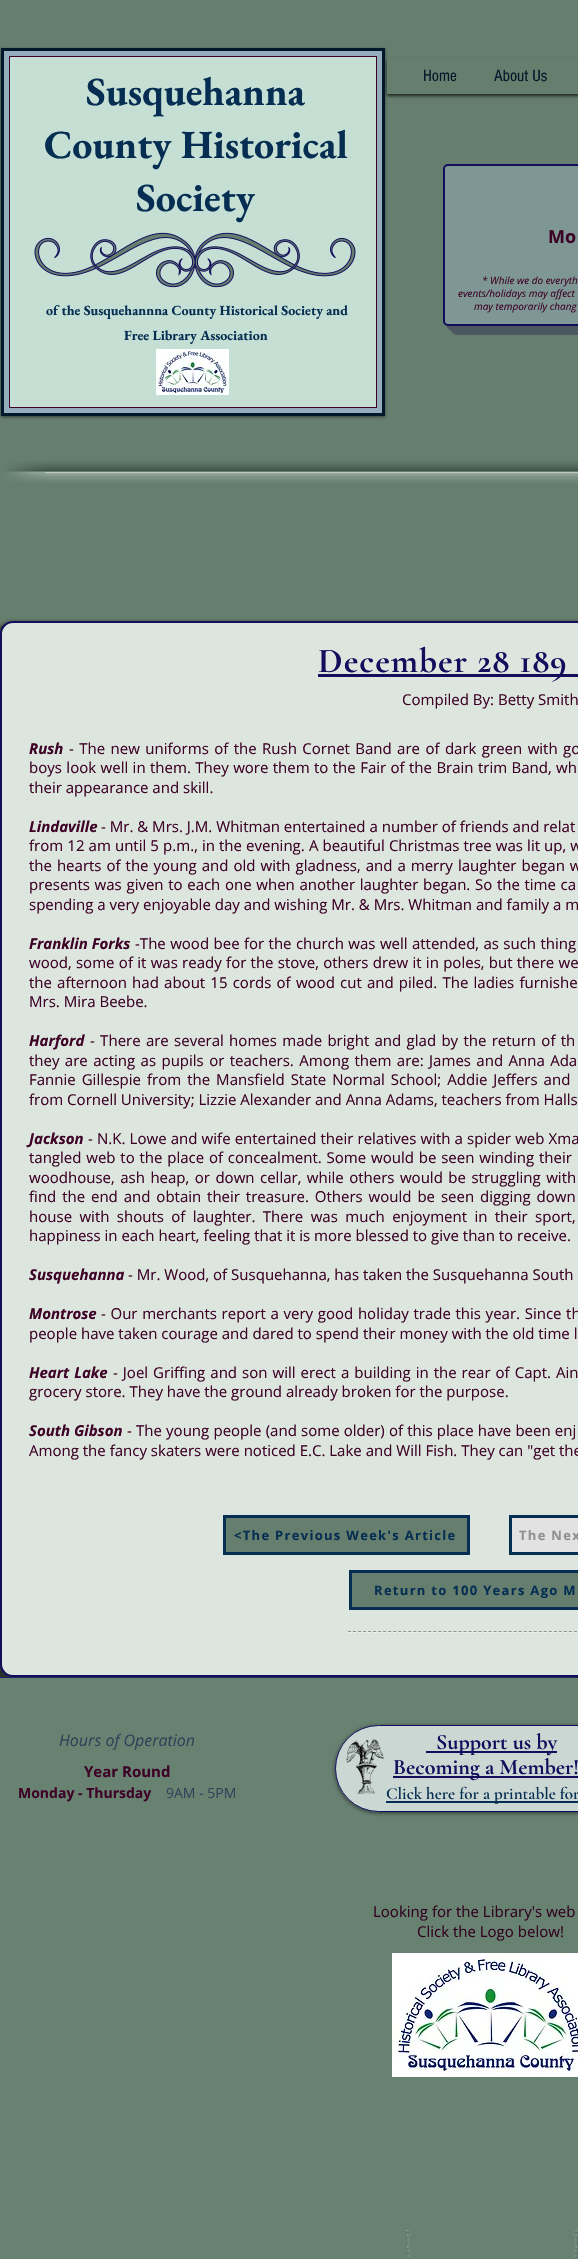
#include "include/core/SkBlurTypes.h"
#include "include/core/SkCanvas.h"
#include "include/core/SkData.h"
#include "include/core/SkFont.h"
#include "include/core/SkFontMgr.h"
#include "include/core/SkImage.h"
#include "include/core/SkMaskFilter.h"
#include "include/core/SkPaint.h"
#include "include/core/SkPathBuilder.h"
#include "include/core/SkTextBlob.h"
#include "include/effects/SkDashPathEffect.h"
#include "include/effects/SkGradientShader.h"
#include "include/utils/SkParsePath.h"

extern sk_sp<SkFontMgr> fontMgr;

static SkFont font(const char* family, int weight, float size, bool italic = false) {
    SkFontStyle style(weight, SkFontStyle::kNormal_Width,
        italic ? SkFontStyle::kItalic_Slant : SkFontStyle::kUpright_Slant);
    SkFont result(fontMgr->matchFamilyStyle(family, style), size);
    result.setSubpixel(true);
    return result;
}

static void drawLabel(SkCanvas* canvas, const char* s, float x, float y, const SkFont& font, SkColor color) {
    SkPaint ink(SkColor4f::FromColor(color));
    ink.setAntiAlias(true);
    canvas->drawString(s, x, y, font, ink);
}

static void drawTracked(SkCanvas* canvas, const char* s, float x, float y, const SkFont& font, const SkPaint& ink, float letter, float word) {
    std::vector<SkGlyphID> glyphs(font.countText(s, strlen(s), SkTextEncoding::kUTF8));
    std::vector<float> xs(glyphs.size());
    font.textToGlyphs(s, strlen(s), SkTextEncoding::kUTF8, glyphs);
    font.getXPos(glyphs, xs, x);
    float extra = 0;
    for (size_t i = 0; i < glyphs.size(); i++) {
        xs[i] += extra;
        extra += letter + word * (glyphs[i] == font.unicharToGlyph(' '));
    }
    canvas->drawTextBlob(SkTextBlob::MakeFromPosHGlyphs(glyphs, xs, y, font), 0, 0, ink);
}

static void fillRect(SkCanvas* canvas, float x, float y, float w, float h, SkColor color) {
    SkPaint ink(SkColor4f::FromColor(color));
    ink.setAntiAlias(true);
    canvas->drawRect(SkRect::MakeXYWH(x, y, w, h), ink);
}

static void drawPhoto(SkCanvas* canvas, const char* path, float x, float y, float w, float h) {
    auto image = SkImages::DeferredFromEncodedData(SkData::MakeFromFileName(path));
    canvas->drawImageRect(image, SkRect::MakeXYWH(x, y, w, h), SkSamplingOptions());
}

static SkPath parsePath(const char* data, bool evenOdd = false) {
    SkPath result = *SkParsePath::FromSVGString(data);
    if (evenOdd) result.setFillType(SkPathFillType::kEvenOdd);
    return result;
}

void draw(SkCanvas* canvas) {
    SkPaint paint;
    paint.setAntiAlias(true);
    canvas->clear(0xFF657E6E);
    paint.setColor(0x80000000);
    paint.setMaskFilter(SkMaskFilter::MakeBlur(kNormal_SkBlurStyle, 1.5f));
    canvas->drawRect(SkRect::MakeXYWH(1, 49, 384, 368), paint);
    paint.setMaskFilter(nullptr);
    paint.setColor(0xFF93ADBC);
    canvas->drawRect(SkRect::MakeXYWH(2.5f, 49.5f, 381, 365), paint);
    paint.setStroke(true);
    paint.setStrokeWidth(3);
    paint.setColor(0xFF021729);
    canvas->drawRect(SkRect::MakeXYWH(2.5f, 49.5f, 381, 365), paint);
    paint.setStroke(false);
    paint.setColor(0xFFC5DFD4);
    canvas->drawRect(SkRect::MakeXYWH(9.5f, 56.5f, 367, 351), paint);
    paint.setStroke(true);
    paint.setStrokeWidth(1);
    paint.setColor(0xFF3D0226);
    canvas->drawRect(SkRect::MakeXYWH(9.5f, 56.5f, 367, 351), paint);
    SkFont font1 = font("EB Garamond", 700, 40);
    drawLabel(canvas, "Susquehanna", 86, 105, font1, 0xFF052E52);
    drawLabel(canvas, "County Historical", 44, 158, font1, 0xFF052E52);
    drawLabel(canvas, "Society", 136, 211, font1, 0xFF052E52);
    drawPhoto(canvas, "assets/img1.png", 34, 232, 322, 56);
    SkFont font2 = font("EB Garamond", 700, 14);
    drawLabel(canvas, "of the Susquehannna County Historical Society and", 46, 315, font2, 0xFF052E52);
    drawLabel(canvas, "Free Library Association", 124, 340, font2, 0xFF052E52);
    drawPhoto(canvas, "assets/img2.png", 156, 349, 73, 46);
    paint.setStroke(false);
    paint.setColor(0xB3000000);
    paint.setMaskFilter(SkMaskFilter::MakeBlur(kNormal_SkBlurStyle, 1.5f));
    canvas->drawRect(SkRect::MakeXYWH(387, 60, 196, 36), paint);
    paint.setMaskFilter(nullptr);
    fillRect(canvas, 387, 58, 191, 36, 0xFF657E6E);
    SkFont font3 = font("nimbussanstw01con", 400, 17);
    drawLabel(canvas, "Home", 423, 81, font3, 0xFF021729);
    drawLabel(canvas, "About Us", 494, 81, font3, 0xFF021729);
    paint.setColor(0xFF4C585F);
    canvas->drawPath(parsePath("M452 326V330C452 333 454 335 457 335H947C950 335 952 333 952 330V178C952 175 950 173 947 173H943V321C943 324 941 326 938 326Z"), paint);
    canvas->drawPath(parsePath("M450 326V328C450 331 452 333 455 333H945C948 333 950 331 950 328V176C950 173 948 171 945 171H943V321C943 324 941 326 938 326Z"), paint);
    canvas->drawPath(parsePath("M448 326C448 329 450 331 453 331H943C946 331 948 329 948 326V174C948 171 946 169 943 169V321C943 324 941 326 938 326Z"), paint);
    canvas->drawPath(parsePath("M446 326C447 328 449 329 451 329H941C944 329 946 327 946 324V172C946 170 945 168 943 167V296C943 306 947 326 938 326Z"), paint);
    canvas->drawPath(parsePath("M445 325C446 326 447 327 449 327H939C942 327 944 325 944 322V170C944 168 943 167 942 166C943 167 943 168 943 169V321C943 324 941 326 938 326H448C447 326 446 326 445 325Z"), paint);
    paint.setColor(0x7A98AFBD);
    canvas->drawRoundRect(SkRect::MakeXYWH(444, 165, 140, 160), 4, 4, paint);
    paint.setStroke(true);
    paint.setStrokeWidth(2);
    paint.setColor(0xFF130D5C);
    canvas->drawRoundRect(SkRect::MakeXYWH(444, 165, 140, 160), 4, 4, paint);
    SkFont font4 = font("Open Sans", 700, 18);
    drawLabel(canvas, "Mo", 548, 243, font4, 0xFF3D0226);
    SkFont font5 = font("Open Sans", 400, 10, true);
    drawLabel(canvas, "* While we do everyth", 482, 284, font5, 0xFF3D0226);
    drawLabel(canvas, "events/holidays may affect", 458, 297, font5, 0xFF3D0226);
    drawLabel(canvas, "may temporarily chang", 474, 310, font5, 0xFF3D0226);
    drawPhoto(canvas, "assets/img3.png", 45, 461, 533, 22);
    drawPhoto(canvas, "assets/img4.png", 4, 461, 41, 22);
    paint.setStroke(false);
    paint.setColor(0x99000000);
    paint.setMaskFilter(SkMaskFilter::MakeBlur(kNormal_SkBlurStyle, 2));
    canvas->drawRoundRect(SkRect::MakeXYWH(-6, 622, 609, 1068), 19, 19, paint);
    paint.setMaskFilter(nullptr);
    paint.setColor(0xFFDCE6DF);
    canvas->drawRoundRect(SkRect::MakeXYWH(1, 622, 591, 1054), 12, 12, paint);
    paint.setStroke(true);
    paint.setColor(0xFF130D5C);
    canvas->drawRoundRect(SkRect::MakeXYWH(1, 622, 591, 1054), 12, 12, paint);
    fillRect(canvas, 318, 674, 260, 3, 0xFF130D5C);
    SkFont font6 = font("Cormorant Garamond", 700, 35);
    paint.setStroke(false);
    drawTracked(canvas, "December 28 189", 318, 672, font6, paint, 1, 0);
    SkFont font7 = font("Open Sans", 400, 15);
    drawLabel(canvas, "Compiled By: Betty Smith", 402, 705, font7, 0xFF3D0226);
    SkFont font8 = font("Open Sans", 700, 15, true);
    drawLabel(canvas, "Rush", 29, 754, font8, 0xFF3D0226);
    paint.setColor(0xFF3D0226);
    drawTracked(canvas, "- The new uniforms of the Rush Cornet Band are of dark green with go", 69, 754, font7, paint, 0, 1.5f);
    drawTracked(canvas, "boys look well in them. They wore them to the Fair of the Brain trim Band, wh", 29, 773, font7, paint, 0, 0.5f);
    drawLabel(canvas, "their appearance and skill.", 29, 793, font7, 0xFF3D0226);
    drawLabel(canvas, "Lindaville", 29, 832, font8, 0xFF3D0226);
    drawLabel(canvas, "- Mr. & Mrs. J.M. Whitman entertained a number of friends and relat", 101, 832, font7, 0xFF3D0226);
    drawTracked(canvas, "from 12 am until 5 p.m., in the evening. A beautiful Christmas tree was lit up, w", 29, 851, font7, paint, 0, 0.2f);
    drawTracked(canvas, "the hearts of the young and old with gladness, and a merry laughter began w", 29, 871, font7, paint, 0, 1.1f);
    drawTracked(canvas, "presents was given to each one when another laughter began. So the time ca", 29, 890, font7, paint, 0, 0.75f);
    drawLabel(canvas, "spending a very enjoyable day and wishing Mr. & Mrs. Whitman and family a m", 29, 910, font7, 0xFF3D0226);
    drawLabel(canvas, "Franklin Forks", 29, 949, font8, 0xFF3D0226);
    drawTracked(canvas, "-The wood bee for the church was well attended, as such thing", 135, 949, font7, paint, 0, 0.5f);
    drawTracked(canvas, "wood, some of it was ready for the stove, others drew it in poles, but there we", 29, 968, font7, paint, 0, 0.4f);
    drawTracked(canvas, "the afternoon had about 15 cords of wood cut and piled. The ladies furnishe", 29, 988, font7, paint, 0, 1.3f);
    drawLabel(canvas, "Mrs. Mira Beebe.", 29, 1007, font7, 0xFF3D0226);
    drawLabel(canvas, "Harford", 29, 1046, font8, 0xFF3D0226);
    drawTracked(canvas, "- There are several homes made bright and glad by the return of th", 90, 1046, font7, paint, 0, 1.4f);
    drawTracked(canvas, "they are acting as pupils or teachers. Among them are: James and Anna Ada", 29, 1066, font7, paint, 0, 1.5f);
    drawTracked(canvas, "Fannie Gillespie from the Mansfield State Normal School; Addie Jeffers and", 29, 1085, font7, paint, 0, 2.1f);
    drawLabel(canvas, "from Cornell University; Lizzie Alexander and Anna Adams, teachers from Halls", 29, 1105, font7, 0xFF3D0226);
    drawLabel(canvas, "Jackson", 29, 1144, font8, 0xFF3D0226);
    drawTracked(canvas, "- N.K. Lowe and wife entertained their relatives with a spider web Xma", 88, 1144, font7, paint, 0, 0.25f);
    drawTracked(canvas, "tangled web to the place of concealment. Some would be seen winding their", 29, 1163, font7, paint, 0, 0.9f);
    drawTracked(canvas, "woodhouse, ash heap, or down cellar, while others would be struggling with", 29, 1183, font7, paint, 0, 1.6f);
    drawTracked(canvas, "find the end and obtain their treasure. Others would be seen digging down", 29, 1202, font7, paint, 0, 2);
    drawTracked(canvas, "house with shouts of laughter. There was much enjoyment in their sport,", 29, 1222, font7, paint, 0, 3.5f);
    drawLabel(canvas, "happiness in each heart, feeling that it is more blessed to give than to receive.", 29, 1241, font7, 0xFF3D0226);
    drawLabel(canvas, "Susquehanna", 29, 1280, font8, 0xFF3D0226);
    drawLabel(canvas, "- Mr. Wood, of Susquehanna, has taken the Susquehanna South", 128, 1280, font7, 0xFF3D0226);
    drawLabel(canvas, "Montrose", 29, 1319, font8, 0xFF3D0226);
    drawTracked(canvas, "- Our merchants report a very good holiday trade this year. Since th", 101, 1319, font7, paint, 0, 0.75f);
    drawLabel(canvas, "people have taken courage and dared to spend their money with the old time l", 29, 1339, font7, 0xFF3D0226);
    drawTracked(canvas, "Heart Lake", 29, 1378, font8, paint, 0, 1);
    drawTracked(canvas, "- Joel Griffing and son will erect a building in the rear of Capt. Ain", 113, 1378, font7, paint, 0, 1.1f);
    drawLabel(canvas, "grocery store. They have the ground already broken for the purpose.", 29, 1397, font7, 0xFF3D0226);
    drawLabel(canvas, "South Gibson", 29, 1436, font8, 0xFF3D0226);
    drawTracked(canvas, "- The young people (and some older) of this place have been enj", 127, 1436, font7, paint, 0, 0.25f);
    drawLabel(canvas, "Among the fancy skaters were noticed E.C. Lake and Will Fish. They can \"get the", 29, 1456, font7, 0xFF3D0226);
    paint.setColor(0xFF657E6E);
    canvas->drawRect(SkRect::MakeXYWH(224.5f, 1516.5f, 244, 37), paint);
    paint.setStroke(true);
    paint.setStrokeWidth(3);
    paint.setColor(0xFF052E52);
    canvas->drawRect(SkRect::MakeXYWH(224.5f, 1516.5f, 244, 37), paint);
    SkFont font9 = font("Open Sans", 700, 13);
    paint.setStroke(false);
    drawTracked(canvas, "<The Previous Week's Article", 234, 1540, font9, paint, 1.3f, 0);
    paint.setColor(0xFFE2E2E2);
    canvas->drawRect(SkRect::MakeXYWH(510.5f, 1516.5f, 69, 37), paint);
    paint.setStroke(true);
    paint.setColor(0xFF052E52);
    canvas->drawRect(SkRect::MakeXYWH(510.5f, 1516.5f, 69, 37), paint);
    paint.setStroke(false);
    paint.setColor(0xFF8F8F8F);
    drawTracked(canvas, "The Nex", 519, 1540, font9, paint, 1.3f, 0);
    paint.setColor(0xFF657E6E);
    canvas->drawRect(SkRect::MakeXYWH(350.5f, 1571.5f, 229, 37), paint);
    paint.setStroke(true);
    paint.setColor(0xFF052E52);
    canvas->drawRect(SkRect::MakeXYWH(350.5f, 1571.5f, 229, 37), paint);
    paint.setStroke(false);
    drawTracked(canvas, "Return to 100 Years Ago M", 374, 1595, font9, paint, 1.3f, 0);
    paint.setStroke(true);
    paint.setStrokeWidth(1);
    paint.setColor(0xFF8F9691);
    paint.setPathEffect(SkDashPathEffect::Make({{3, 2.02f}}, 0));
    canvas->drawPath(parsePath("M348 1631.5H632"), paint);
    paint.setPathEffect(nullptr);
    paint.setColor(0xFFEEF3EF);
    paint.setPathEffect(SkDashPathEffect::Make({{3, 2.02f}}, 0));
    canvas->drawPath(parsePath("M348 1632.5H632"), paint);
    paint.setPathEffect(nullptr);
    fillRect(canvas, 0, 1678, 578, 581, 0xFF688272);
    fillRect(canvas, 0, 1677, 578, 1, 0xFF242460);
    SkFont font10 = font("Open Sans", 400, 16, true);
    drawLabel(canvas, "Hours of Operation", 59, 1746, font10, 0xFF324158);
    SkFont font11 = font("Open Sans", 700, 15);
    drawLabel(canvas, "Year Round", 84, 1777, font11, 0xFF3D0226);
    SkFont font12 = font("Open Sans", 700, 14);
    drawLabel(canvas, "Monday - Thursday", 18, 1798, font12, 0xFF3D0226);
    SkFont font13 = font("Open Sans", 400, 14);
    drawLabel(canvas, "9AM - 5PM", 166, 1798, font13, 0xFF324158);
    canvas->save();
    canvas->clipPath(parsePath("M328 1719H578V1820H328ZM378.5 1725H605.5C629.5 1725 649 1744.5 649 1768.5C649 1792.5 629.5 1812 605.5 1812H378.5C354.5 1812 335 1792.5 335 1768.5C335 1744.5 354.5 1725 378.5 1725Z", true), true);
    paint.setStroke(false);
    paint.setColor(0x99000000);
    paint.setMaskFilter(SkMaskFilter::MakeBlur(kNormal_SkBlurStyle, 2));
    canvas->drawRoundRect(SkRect::MakeXYWH(335, 1726, 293, 87), 43.5f, 43.5f, paint);
    paint.setMaskFilter(nullptr);
    canvas->restore();
    paint.setColor(0xB5F2FAF9);
    canvas->drawRoundRect(SkRect::MakeXYWH(335.5f, 1725.5f, 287, 86), 43, 43, paint);
    paint.setStroke(true);
    paint.setColor(0xFF130D5C);
    canvas->drawRoundRect(SkRect::MakeXYWH(335.5f, 1725.5f, 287, 86), 43, 43, paint);
    drawPhoto(canvas, "assets/img5.png", 346, 1739, 38, 55);
    fillRect(canvas, 426, 1751, 131, 2, 0xFF130D5C);
    SkFont font14 = font("Cormorant Garamond", 700, 22);
    drawLabel(canvas, "Support us by", 436, 1749, font14, 0xFF130D5C);
    fillRect(canvas, 393, 1776, 185, 2, 0xFF130D5C);
    drawLabel(canvas, "Becoming a Member!", 393, 1774, font14, 0xFF130D5C);
    fillRect(canvas, 386, 1801, 192, 2, 0xFF052E52);
    SkFont font15 = font("Cormorant Garamond", 600, 17);
    drawLabel(canvas, "Click here for a printable for", 386, 1799, font15, 0xFF052E52);
    drawLabel(canvas, "Looking for the Library's web", 373, 1917, font7, 0xFF31021F);
    drawLabel(canvas, "Click the Logo below!", 417, 1937, font7, 0xFF31021F);
    drawPhoto(canvas, "assets/img6.png", 392, 1953, 186, 124);
    fillRect(canvas, 409, 2230, 166, 1, 0xFF7A9183);
    drawPhoto(canvas, "assets/img7.png", 405, 2230, 6, 29);
    fillRect(canvas, 408, 2230, 168, 1, 0x21000000);
    drawPhoto(canvas, "assets/img8.png", 573, 2230, 5, 29);
}
